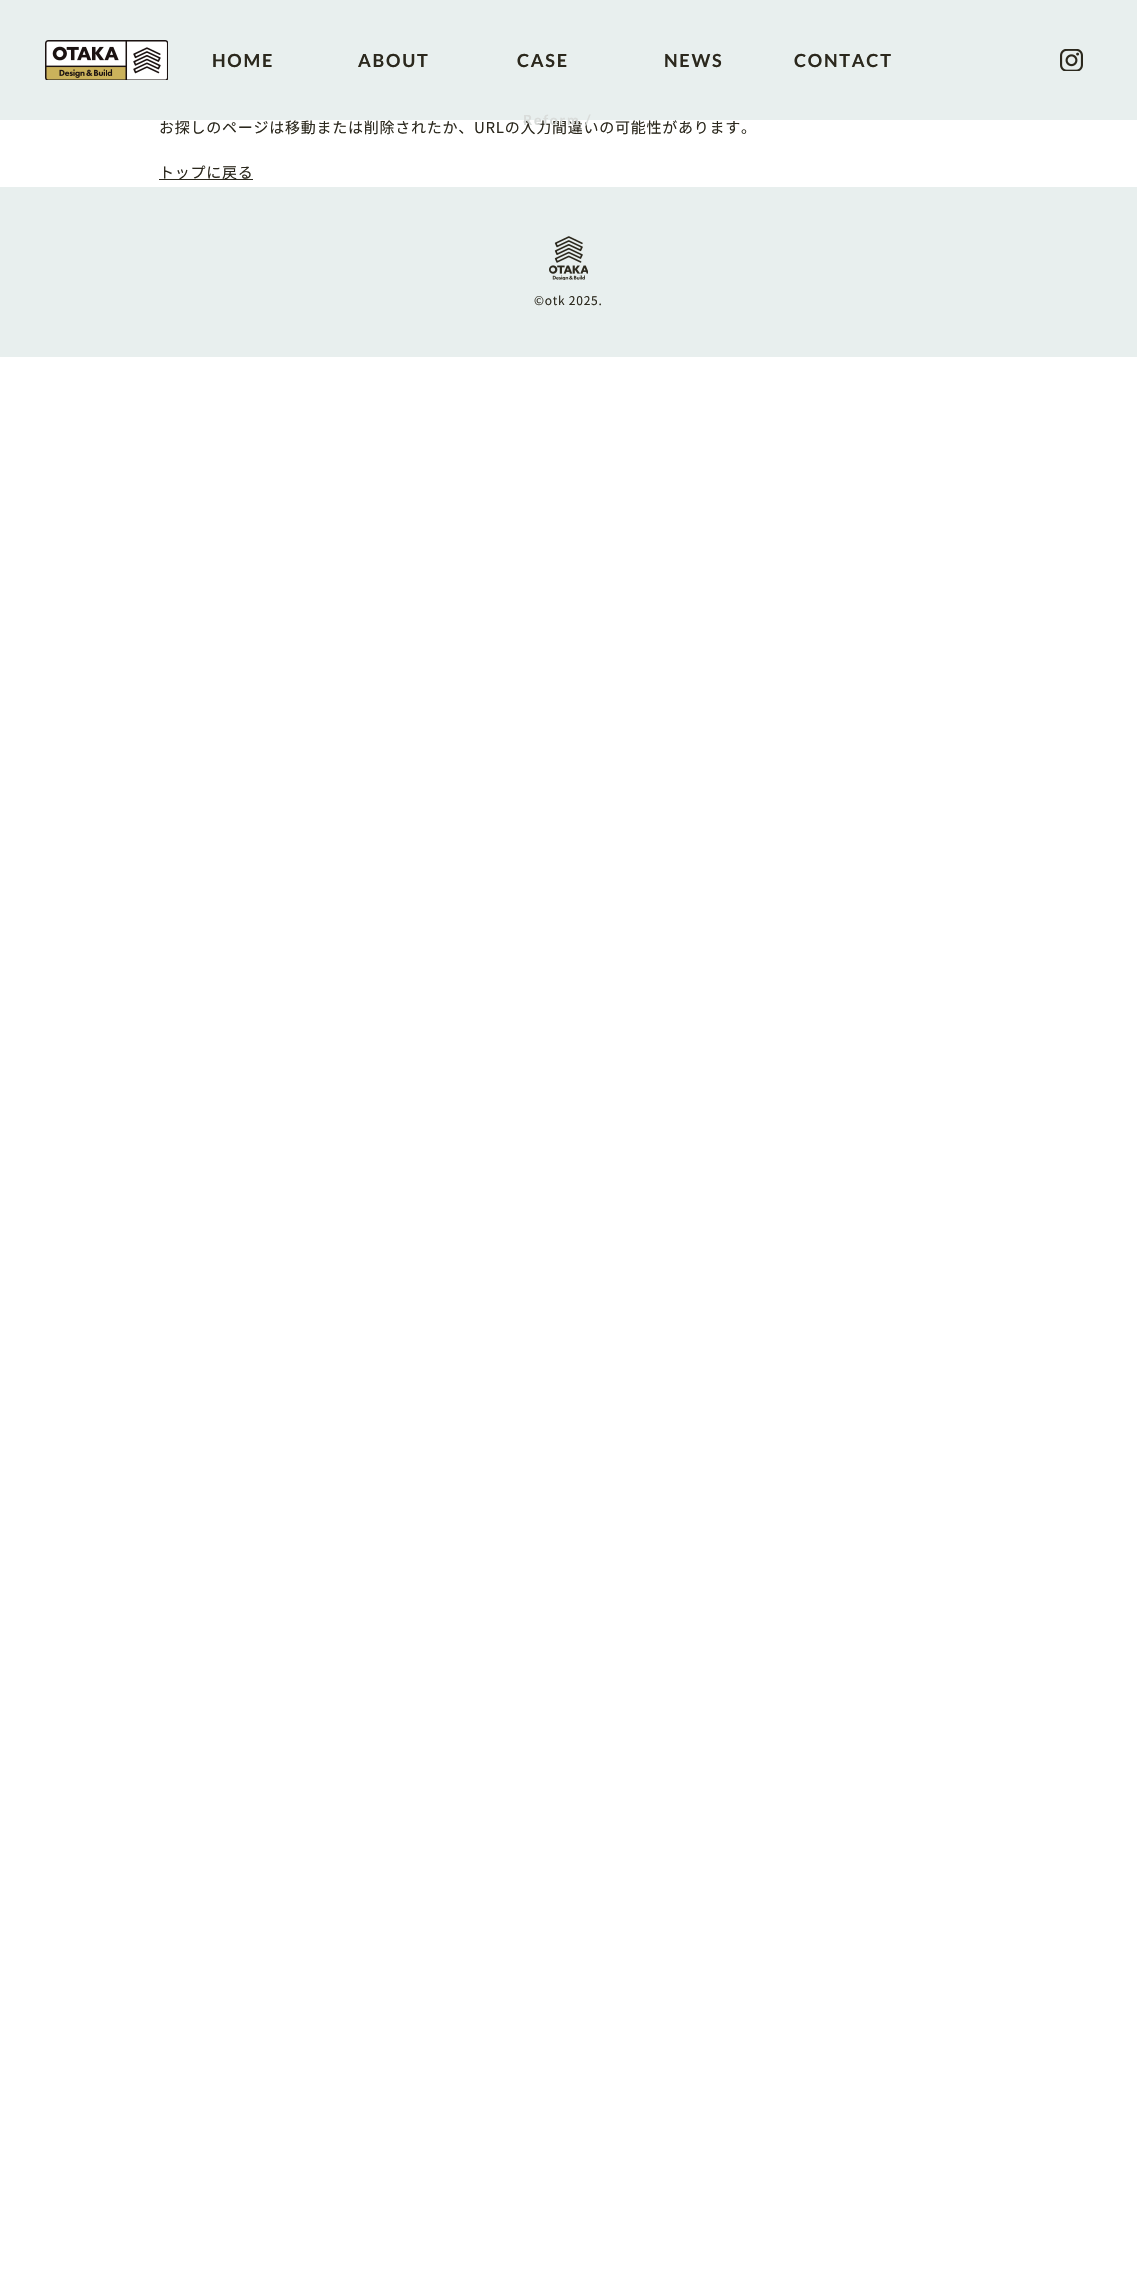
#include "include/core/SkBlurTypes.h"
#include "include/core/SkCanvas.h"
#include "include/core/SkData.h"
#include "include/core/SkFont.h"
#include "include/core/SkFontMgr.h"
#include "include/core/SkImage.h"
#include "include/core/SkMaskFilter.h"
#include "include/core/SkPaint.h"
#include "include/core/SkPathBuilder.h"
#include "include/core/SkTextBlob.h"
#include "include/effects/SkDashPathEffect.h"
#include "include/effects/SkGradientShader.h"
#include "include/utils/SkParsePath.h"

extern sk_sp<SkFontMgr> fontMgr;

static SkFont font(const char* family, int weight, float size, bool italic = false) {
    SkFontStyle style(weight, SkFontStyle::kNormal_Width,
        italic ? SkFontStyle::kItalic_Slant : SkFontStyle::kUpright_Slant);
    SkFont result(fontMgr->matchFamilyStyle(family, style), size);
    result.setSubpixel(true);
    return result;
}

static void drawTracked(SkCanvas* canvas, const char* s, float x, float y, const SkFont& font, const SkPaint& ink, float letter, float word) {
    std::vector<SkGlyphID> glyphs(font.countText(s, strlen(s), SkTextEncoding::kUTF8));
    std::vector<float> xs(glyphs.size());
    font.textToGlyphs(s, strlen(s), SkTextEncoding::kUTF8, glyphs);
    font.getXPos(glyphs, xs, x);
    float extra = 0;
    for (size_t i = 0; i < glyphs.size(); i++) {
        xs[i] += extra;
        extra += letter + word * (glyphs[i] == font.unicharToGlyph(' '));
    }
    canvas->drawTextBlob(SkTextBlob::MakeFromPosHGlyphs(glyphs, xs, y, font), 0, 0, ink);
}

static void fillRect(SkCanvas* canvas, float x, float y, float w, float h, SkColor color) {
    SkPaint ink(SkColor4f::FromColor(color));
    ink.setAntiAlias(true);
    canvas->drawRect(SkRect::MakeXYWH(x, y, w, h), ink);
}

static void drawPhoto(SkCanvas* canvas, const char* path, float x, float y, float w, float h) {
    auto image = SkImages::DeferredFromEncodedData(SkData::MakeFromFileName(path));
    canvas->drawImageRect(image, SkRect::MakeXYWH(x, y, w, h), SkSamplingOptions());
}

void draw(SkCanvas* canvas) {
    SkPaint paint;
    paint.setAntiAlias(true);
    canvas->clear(0xFFFFFFFF);
    fillRect(canvas, 0, 0, 1137, 120, 0xFFE8EFEE);
    drawPhoto(canvas, "assets/img1.png", 45, 40, 123, 40);
    SkFont font1 = font("Lato", 700, 18);
    paint.setColor(0xFF2B281D);
    drawTracked(canvas, "HOME", 212, 67, font1, paint, 1.75f, 0);
    drawTracked(canvas, "ABOUT", 358, 67, font1, paint, 1.75f, 0);
    drawTracked(canvas, "CASE", 517, 67, font1, paint, 1.75f, 0);
    SkFont font2 = font("Noto Sans JP", 400, 15);
    drawTracked(canvas, "お探しのページは移動または削除されたか、URLの入力間違いの可能性があります。", 159, 133, font2, paint, 0.75f, 0);
    SkFont font3 = font("Lato", 700, 14);
    paint.setColor(0xFFD9DCDA);
    drawTracked(canvas, "Reform /", 523, 125, font3, paint, 1.75f, 0);
    paint.setColor(0xFF2B281D);
    drawTracked(canvas, "NEWS", 664, 67, font1, paint, 1.75f, 0);
    drawTracked(canvas, "CONTACT", 794, 67, font1, paint, 1.75f, 0);
    drawPhoto(canvas, "assets/img2.png", 1060, 49, 23, 22);
    fillRect(canvas, 159, 179, 94, 1, 0xFF2B281D);
    drawTracked(canvas, "トップに戻る", 159, 178, font2, paint, 0.75f, 0);
    fillRect(canvas, 0, 187, 1137, 170, 0xFFE8EFEE);
    drawPhoto(canvas, "assets/img3.png", 549, 236, 39, 44);
    SkFont font4 = font("Noto Sans JP", 400, 12);
    drawTracked(canvas, "©otk 2025.", 534, 305, font4, paint, 0.75f, 0);
}
